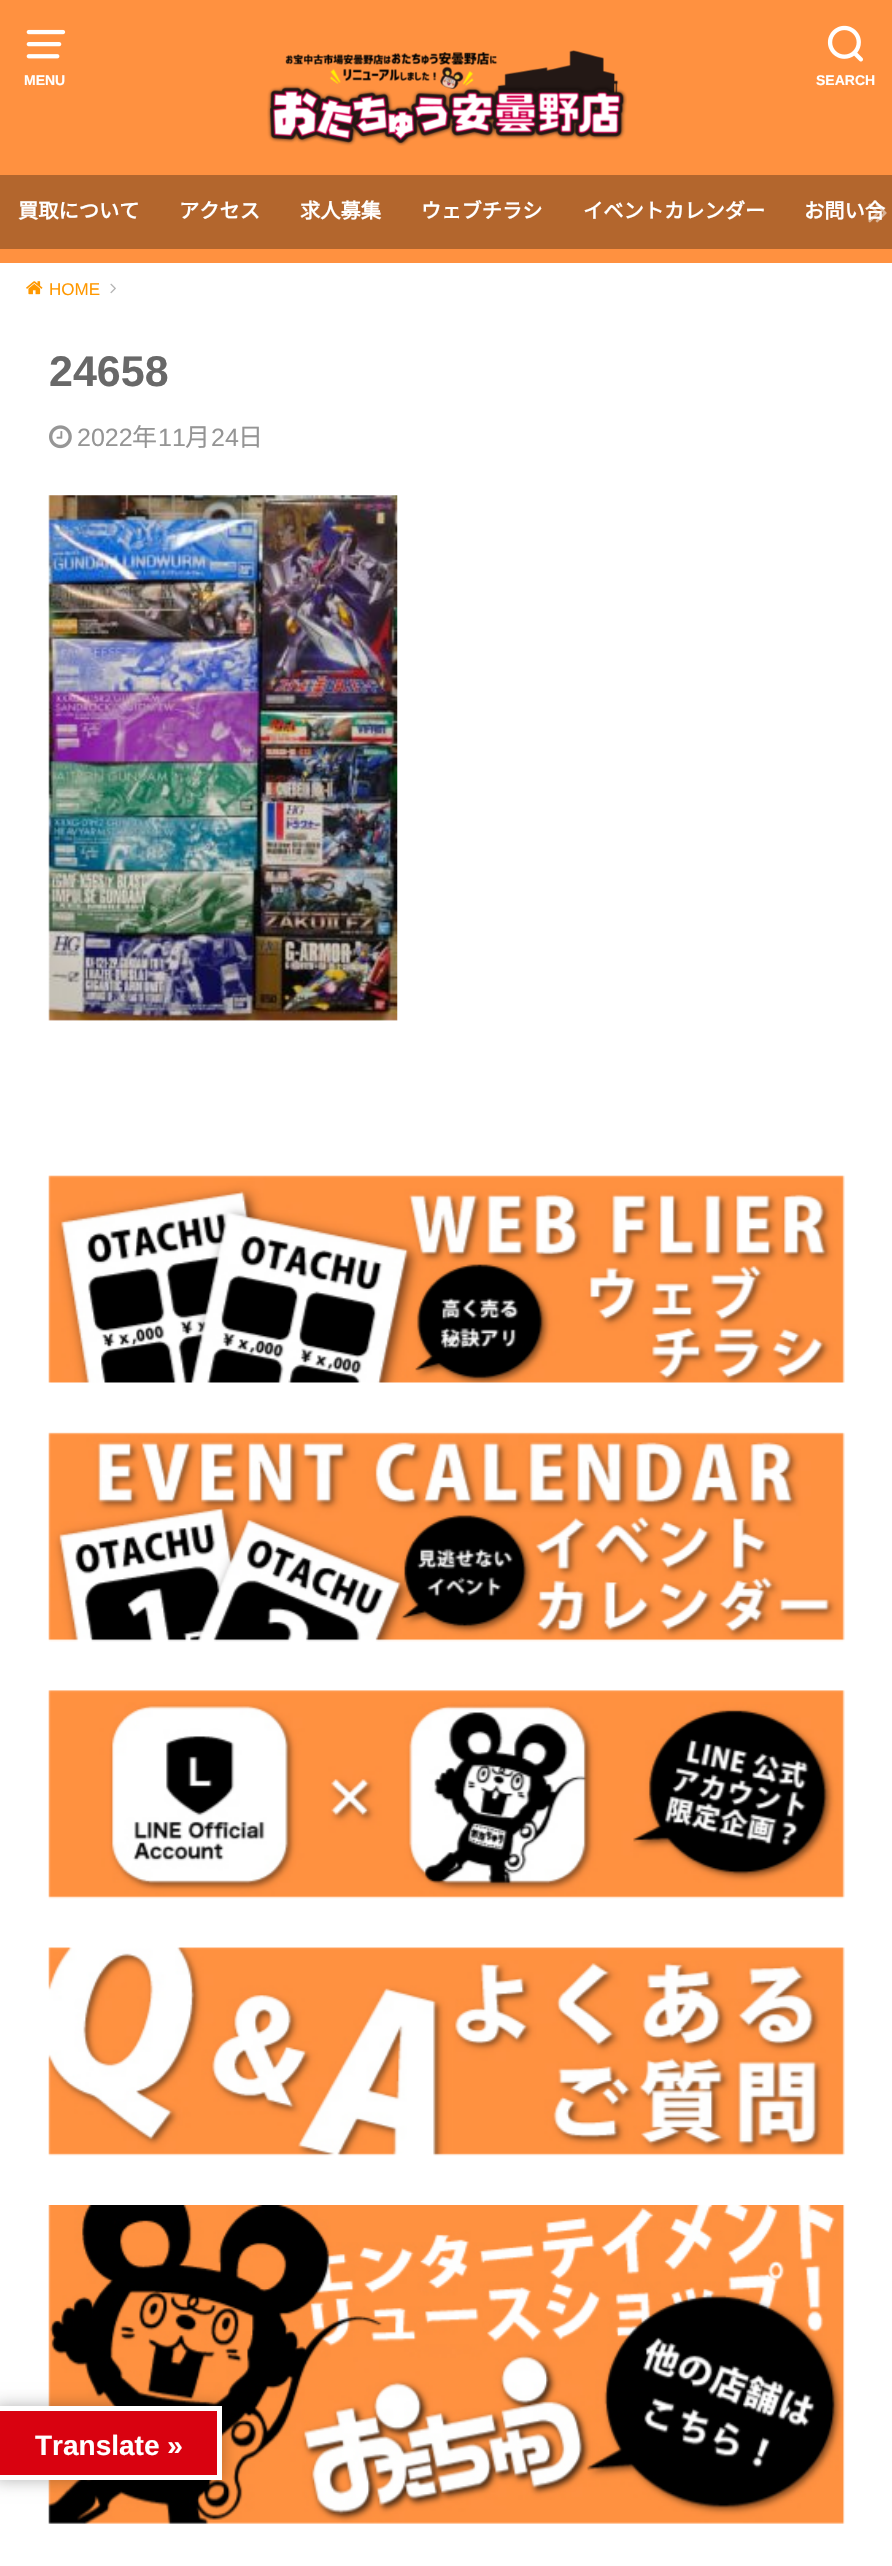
#include "include/core/SkBlurTypes.h"
#include "include/core/SkCanvas.h"
#include "include/core/SkData.h"
#include "include/core/SkFont.h"
#include "include/core/SkFontMgr.h"
#include "include/core/SkImage.h"
#include "include/core/SkMaskFilter.h"
#include "include/core/SkPaint.h"
#include "include/core/SkPathBuilder.h"
#include "include/core/SkTextBlob.h"
#include "include/effects/SkDashPathEffect.h"
#include "include/effects/SkGradientShader.h"
#include "include/utils/SkParsePath.h"

extern sk_sp<SkFontMgr> fontMgr;

static SkFont font(const char* family, int weight, float size, bool italic = false) {
    SkFontStyle style(weight, SkFontStyle::kNormal_Width,
        italic ? SkFontStyle::kItalic_Slant : SkFontStyle::kUpright_Slant);
    SkFont result(fontMgr->matchFamilyStyle(family, style), size);
    result.setSubpixel(true);
    return result;
}

static void drawLabel(SkCanvas* canvas, const char* s, float x, float y, const SkFont& font, SkColor color) {
    SkPaint ink(SkColor4f::FromColor(color));
    ink.setAntiAlias(true);
    canvas->drawString(s, x, y, font, ink);
}

static void fillRect(SkCanvas* canvas, float x, float y, float w, float h, SkColor color) {
    SkPaint ink(SkColor4f::FromColor(color));
    ink.setAntiAlias(true);
    canvas->drawRect(SkRect::MakeXYWH(x, y, w, h), ink);
}

static void drawPhoto(SkCanvas* canvas, const char* path, float x, float y, float w, float h) {
    auto image = SkImages::DeferredFromEncodedData(SkData::MakeFromFileName(path));
    canvas->drawImageRect(image, SkRect::MakeXYWH(x, y, w, h), SkSamplingOptions());
}

void draw(SkCanvas* canvas) {
    SkPaint paint;
    paint.setAntiAlias(true);
    canvas->clear(0xFFFFFFFF);
    fillRect(canvas, 0, 0, 892, 263, 0xFFFF9140);
    drawPhoto(canvas, "assets/img1.png", 26, 29, 40, 30);
    SkFont font1 = font("Liberation Sans", 700, 14);
    drawLabel(canvas, "MENU", 24, 85, font1, 0xFFFFFFFF);
    drawPhoto(canvas, "assets/img2.png", 267, 50, 360, 96);
    drawPhoto(canvas, "assets/img3.png", 827, 25, 36, 37);
    drawLabel(canvas, "SEARCH", 816, 85, font1, 0xFFFFFFFF);
    fillRect(canvas, 0, 175, 892, 74, 0xFFB3662D);
    SkFont font2 = font("Noto Sans JP", 700, 20.25f);
    drawLabel(canvas, "買取について", 18, 218, font2, 0xFFFFFFFF);
    drawLabel(canvas, "アクセス", 179, 218, font2, 0xFFFFFFFF);
    drawLabel(canvas, "求人募集", 300, 218, font2, 0xFFFFFFFF);
    drawLabel(canvas, "ウェブチラシ", 421, 218, font2, 0xFFFFFFFF);
    drawLabel(canvas, "イベントカレンダー", 583, 218, font2, 0xFFFFFFFF);
    drawLabel(canvas, "お問い合", 804, 218, font2, 0xFFFFFFFF);
    drawPhoto(canvas, "assets/img4.png", 868, 203, 19, 20);
    drawPhoto(canvas, "assets/img5.png", 26, 281, 17, 14);
    SkFont font3 = font("Liberation Sans", 400, 17);
    drawLabel(canvas, "HOME", 49, 295, font3, 0xFFFF9800);
    drawPhoto(canvas, "assets/img6.png", 110, 283, 6, 11);
    SkFont font4 = font("Liberation Sans", 700, 43);
    drawLabel(canvas, "24658", 49, 386, font4, 0xFF686868);
    drawPhoto(canvas, "assets/img7.png", 49, 425, 23, 24);
    SkFont font5 = font("Liberation Sans", 400, 25);
    drawLabel(canvas, "2022", 77, 446, font5, 0xFF959595);
    SkFont font6 = font("Noto Sans JP", 100, 25);
    drawLabel(canvas, "年", 132, 446, font6, 0xFF959595);
    drawLabel(canvas, "11", 158, 446, font5, 0xFF959595);
    drawLabel(canvas, "月", 185, 446, font6, 0xFF959595);
    drawLabel(canvas, "24", 211, 446, font5, 0xFF959595);
    drawLabel(canvas, "日", 238, 446, font6, 0xFF959595);
    drawPhoto(canvas, "assets/img8.png", 48, 495, 350, 526);
    drawPhoto(canvas, "assets/img9.png", 48, 1175, 797, 208);
    drawPhoto(canvas, "assets/img10.png", 48, 1432, 797, 210);
    drawPhoto(canvas, "assets/img11.png", 48, 1690, 797, 209);
    drawPhoto(canvas, "assets/img12.png", 48, 1947, 797, 209);
    drawPhoto(canvas, "assets/img13.png", 48, 2205, 797, 319);
    paint.setColor(0x4D000000);
    paint.setMaskFilter(SkMaskFilter::MakeBlur(kNormal_SkBlurStyle, 8));
    canvas->drawRect(SkRect::MakeXYWH(-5, 2406, 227, 74), paint);
    paint.setMaskFilter(nullptr);
    paint.setColor(0xFFD90210);
    canvas->drawRect(SkRect::MakeXYWH(-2.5f, 2408.5f, 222, 69), paint);
    paint.setStroke(true);
    paint.setStrokeWidth(5);
    paint.setColor(0xFFFFFFFF);
    canvas->drawRect(SkRect::MakeXYWH(-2.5f, 2408.5f, 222, 69), paint);
    SkFont font7 = font("Liberation Sans", 700, 28);
    drawLabel(canvas, "Translate »", 35, 2455, font7, 0xFFFFFFFF);
}
